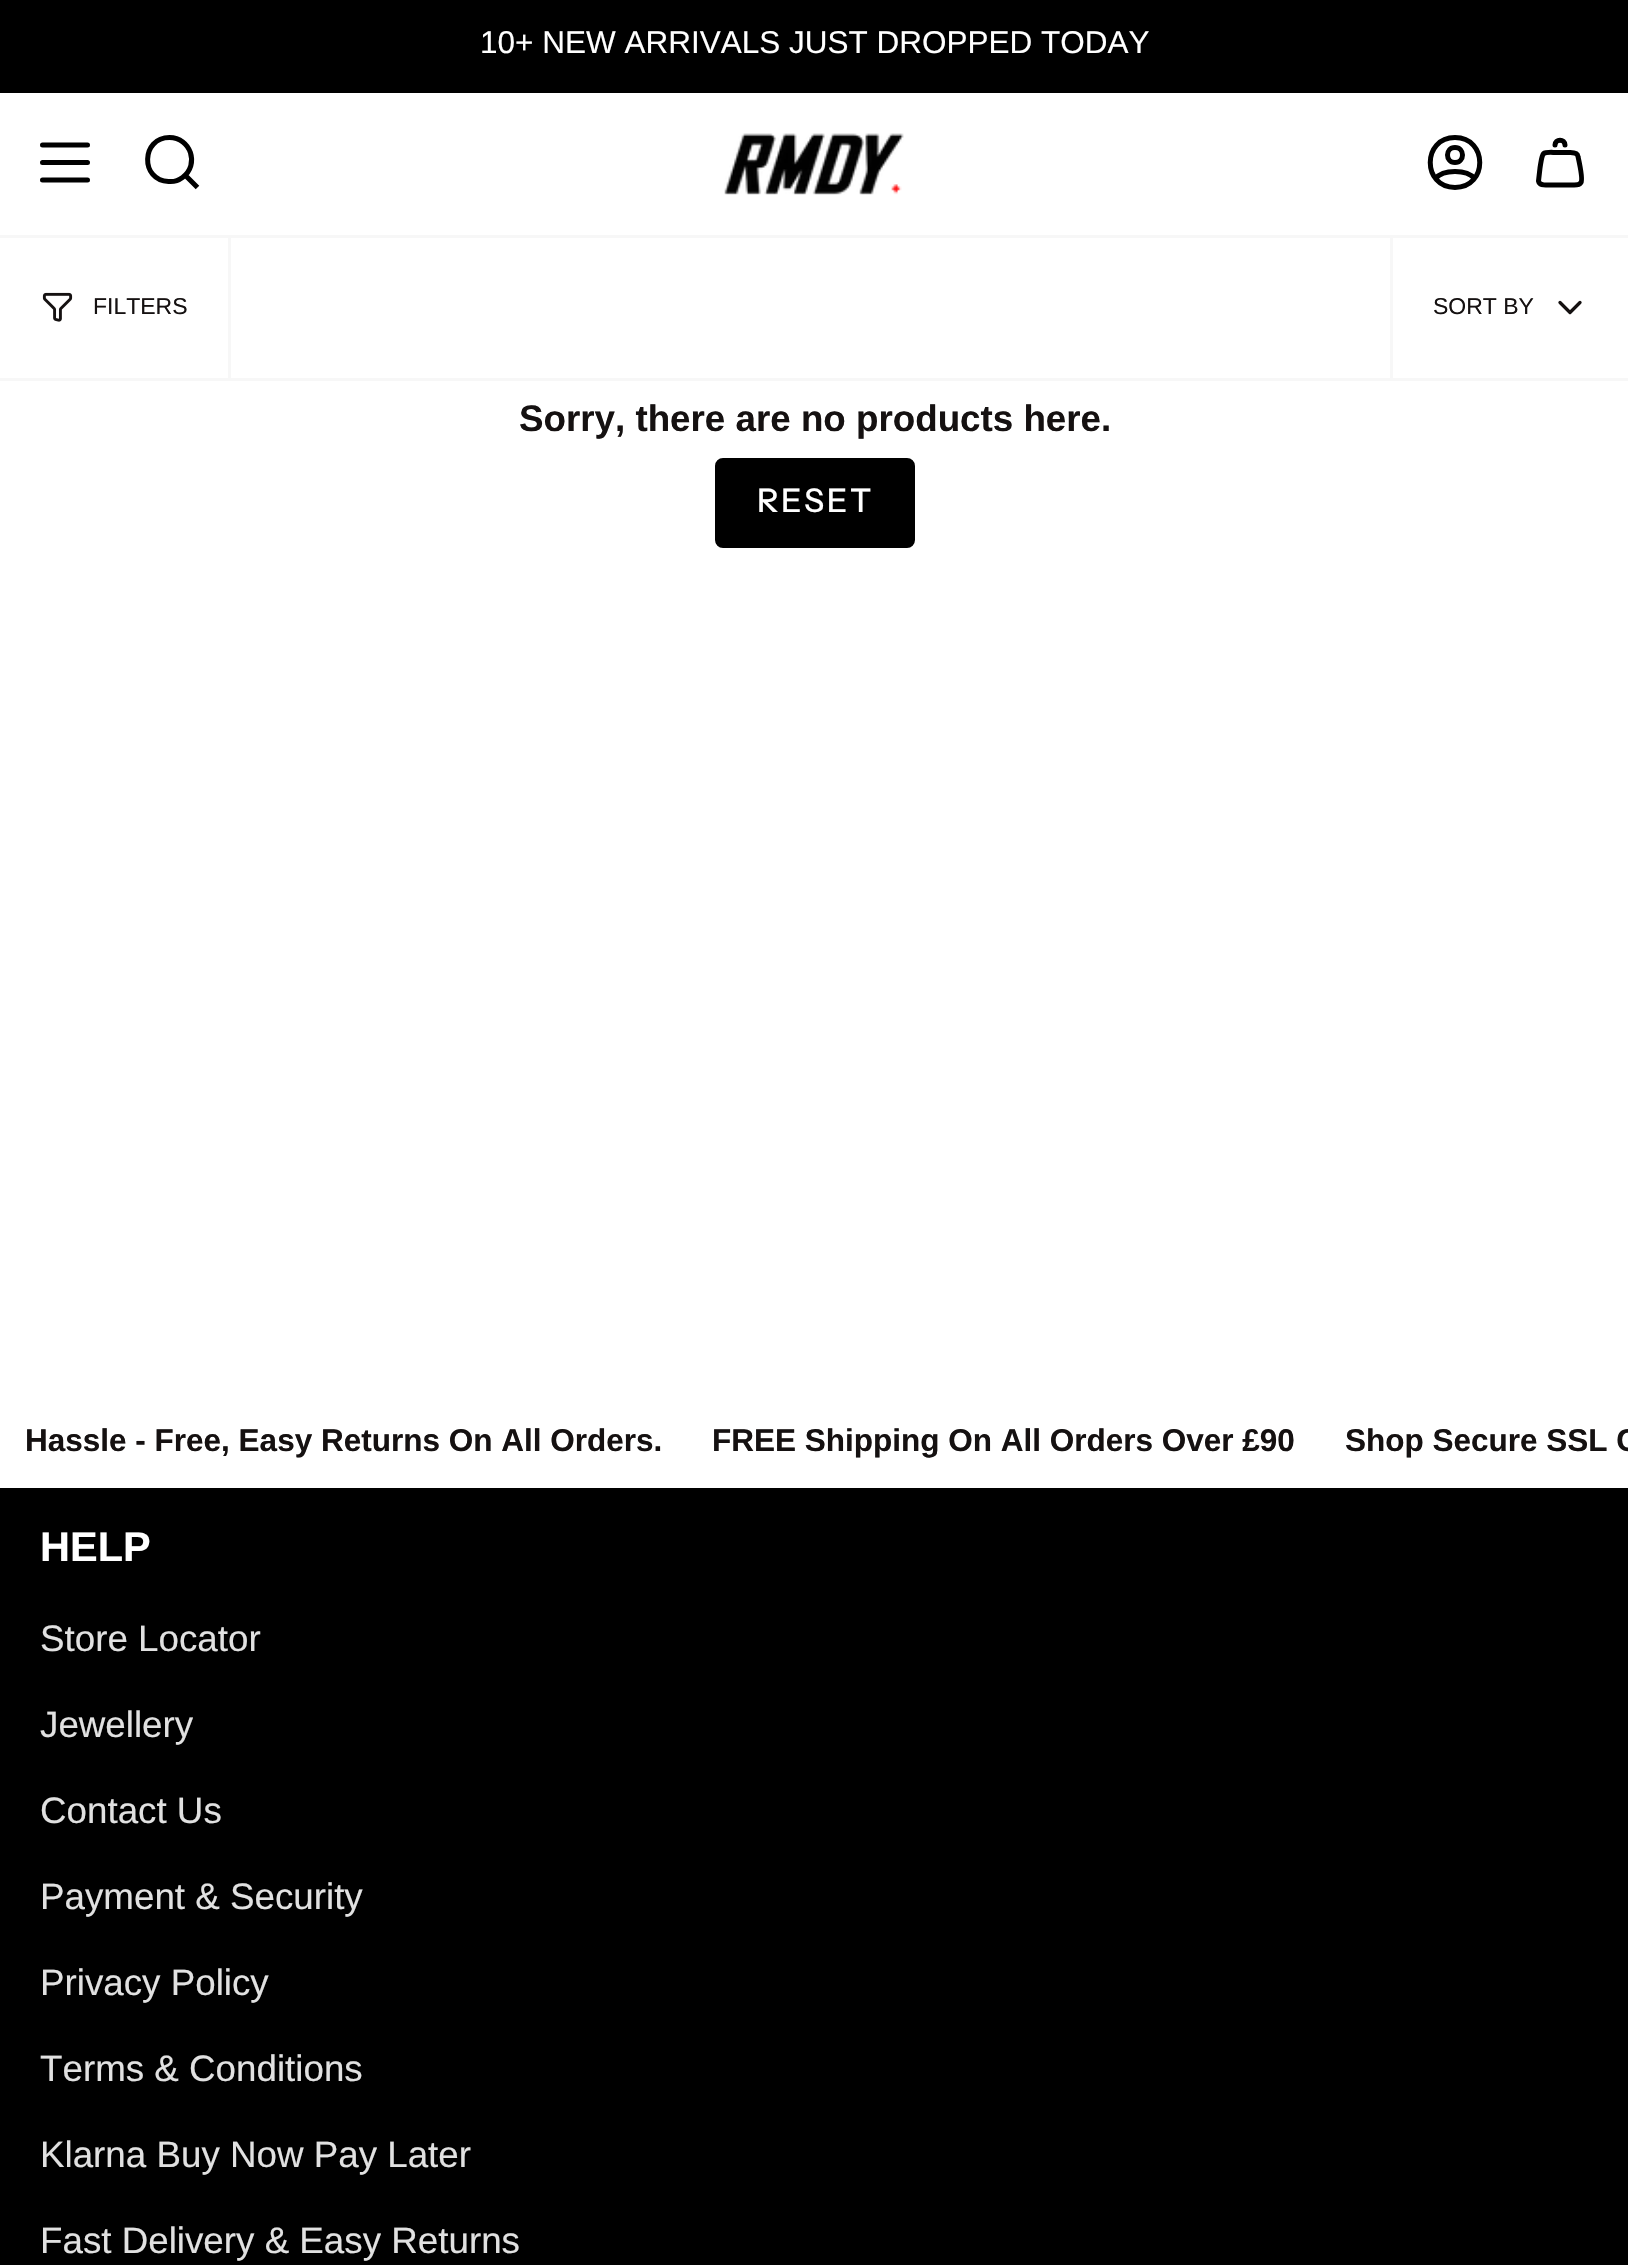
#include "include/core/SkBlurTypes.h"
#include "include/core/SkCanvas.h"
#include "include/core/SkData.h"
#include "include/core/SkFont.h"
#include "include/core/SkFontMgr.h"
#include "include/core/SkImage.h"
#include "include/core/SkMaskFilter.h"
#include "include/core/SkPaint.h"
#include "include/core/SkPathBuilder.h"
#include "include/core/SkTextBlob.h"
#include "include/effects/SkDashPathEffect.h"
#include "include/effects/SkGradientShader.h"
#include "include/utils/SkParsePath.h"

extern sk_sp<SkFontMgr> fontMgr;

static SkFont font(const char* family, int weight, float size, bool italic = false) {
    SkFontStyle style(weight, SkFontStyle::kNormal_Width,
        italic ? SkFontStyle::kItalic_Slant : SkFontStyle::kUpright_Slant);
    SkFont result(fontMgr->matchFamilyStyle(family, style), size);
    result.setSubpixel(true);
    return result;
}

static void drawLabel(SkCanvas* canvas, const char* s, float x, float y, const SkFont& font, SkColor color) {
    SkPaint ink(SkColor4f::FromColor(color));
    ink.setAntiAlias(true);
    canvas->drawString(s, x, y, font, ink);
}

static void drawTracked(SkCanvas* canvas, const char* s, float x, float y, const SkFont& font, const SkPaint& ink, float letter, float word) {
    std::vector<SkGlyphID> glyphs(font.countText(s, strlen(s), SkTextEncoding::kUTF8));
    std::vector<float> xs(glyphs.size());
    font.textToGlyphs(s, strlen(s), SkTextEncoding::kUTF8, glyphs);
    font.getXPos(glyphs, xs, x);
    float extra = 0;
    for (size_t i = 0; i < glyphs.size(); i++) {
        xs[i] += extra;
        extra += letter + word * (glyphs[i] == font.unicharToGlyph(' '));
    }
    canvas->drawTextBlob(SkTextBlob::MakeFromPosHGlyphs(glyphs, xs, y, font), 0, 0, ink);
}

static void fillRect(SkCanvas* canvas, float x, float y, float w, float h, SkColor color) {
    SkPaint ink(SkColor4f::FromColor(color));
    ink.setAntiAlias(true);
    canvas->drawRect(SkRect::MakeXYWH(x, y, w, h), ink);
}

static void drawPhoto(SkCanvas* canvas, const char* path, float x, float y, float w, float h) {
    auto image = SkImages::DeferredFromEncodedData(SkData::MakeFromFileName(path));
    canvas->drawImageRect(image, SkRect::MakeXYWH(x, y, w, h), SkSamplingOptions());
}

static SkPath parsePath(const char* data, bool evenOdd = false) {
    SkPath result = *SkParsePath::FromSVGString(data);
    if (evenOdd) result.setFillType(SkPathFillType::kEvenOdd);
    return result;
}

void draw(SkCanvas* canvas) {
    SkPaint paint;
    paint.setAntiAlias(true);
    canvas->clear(0xFFFFFFFF);
    fillRect(canvas, 0, 0, 1628, 93, 0xFF000000);
    SkFont font1 = font("Liberation Sans", 400, 31.5f);
    drawLabel(canvas, "10+ NEW ARRIVALS JUST DROPPED TODAY", 480, 53, font1, 0xFFFFFFFF);
    paint.setStroke(true);
    paint.setStrokeWidth(5);
    paint.setStrokeCap(SkPaint::kRound_Cap);
    paint.setStrokeJoin(SkPaint::kRound_Join);
    paint.setColor(0xFF000000);
    canvas->drawPath(parsePath("M42.5 145H87.5M42.5 162.5H87.5M42.5 180H87.5"), paint);
    paint.setStrokeCap(SkPaint::kButt_Cap);
    paint.setStrokeJoin(SkPaint::kMiter_Join);
    canvas->drawPath(parsePath("M169.5 137.5C190.5 137.5 200 164.5 182.5 177.5C178.5 180.5 173.5 182 168.5 181.5C140 180.5 141 137.5 169.5 137.5ZM185.5 175.5L197.5 187.5"), paint);
    drawPhoto(canvas, "assets/img1.png", 724, 133, 180, 62);
    paint.setStrokeCap(SkPaint::kRound_Cap);
    paint.setStrokeJoin(SkPaint::kRound_Join);
    canvas->drawPath(parsePath("M1455 137.5C1422 137.5 1422 187.5 1455 187.5C1488 187.5 1488 137.5 1455 137.5ZM1435.5 178.5C1443 169 1467 169 1474.5 178.5M1455 162.5C1465 162.5 1465 147.5 1455 147.5C1445 147.5 1445 162.5 1455 162.5Z"), paint);
    canvas->drawPath(parsePath("M1578 156.5C1579 161 1583 179 1581 182.5C1579 186 1574.5 185 1571 185H1549C1545 185 1539.5 186 1538.5 181L1540 168C1543 149.5 1541 152.5 1560 152.5H1569C1572.5 152.5 1577.5 152 1578 156.5ZM1565 145C1565 138.5 1555 138.5 1555 145"), paint);
    fillRect(canvas, 0, 235, 1628, 3, 0xFFF7F7F7);
    fillRect(canvas, 0, 378, 1628, 3, 0xFFF7F7F7);
    fillRect(canvas, 228, 238, 3, 140, 0xFFF7F7F7);
    drawPhoto(canvas, "assets/img2.png", 42, 292, 31, 30);
    SkFont font2 = font("Liberation Sans", 400, 23);
    drawLabel(canvas, "FILTERS", 93, 314, font2, 0xFF151111);
    fillRect(canvas, 1390, 238, 3, 140, 0xFFF7F7F7);
    drawLabel(canvas, "SORT BY", 1433, 314, font2, 0xFF151111);
    paint.setStrokeWidth(3.3f);
    paint.setColor(0xFF151111);
    canvas->drawPath(parsePath("M1560 302.5L1570 312.5L1580 302.5"), paint);
    SkFont font3 = font("Liberation Sans", 700, 36.75f);
    drawLabel(canvas, "Sorry, there are no products here.", 519, 431, font3, 0xFF151111);
    paint.setStroke(false);
    paint.setColor(0xFF000000);
    canvas->drawRoundRect(SkRect::MakeXYWH(716.5f, 459.5f, 197, 87), 6.5f, 6.5f, paint);
    paint.setStroke(true);
    paint.setStrokeWidth(3);
    paint.setStrokeCap(SkPaint::kButt_Cap);
    paint.setStrokeJoin(SkPaint::kMiter_Join);
    canvas->drawRoundRect(SkRect::MakeXYWH(716.5f, 459.5f, 197, 87), 6.5f, 6.5f, paint);
    SkFont font4 = font("Instrument Sans", 500, 32.5f);
    paint.setStroke(false);
    paint.setColor(0xFFFFFFFF);
    drawTracked(canvas, "RESET", 757, 512, font4, paint, 2.5f, 0);
    SkFont font5 = font("Liberation Sans", 700, 31.5f);
    drawLabel(canvas, "Hassle - Free, Easy Returns On All Orders.", 25, 1451, font5, 0xFF151111);
    drawLabel(canvas, "FREE Shipping On All Orders Over £90", 712, 1451, font5, 0xFF151111);
    drawLabel(canvas, "Shop Secure SSL C", 1345, 1451, font5, 0xFF151111);
    fillRect(canvas, 0, 1488, 1628, 777, 0xFF000000);
    SkFont font6 = font("Liberation Sans", 700, 41.5f);
    drawLabel(canvas, "HELP", 40, 1561, font6, 0xFFFFFFFF);
    SkFont font7 = font("Liberation Sans", 400, 36.75f);
    drawLabel(canvas, "Store Locator", 40, 1651, font7, 0xFFE1E1E1);
    drawLabel(canvas, "Jewellery", 40, 1737, font7, 0xFFE1E1E1);
    drawLabel(canvas, "Contact Us", 40, 1823, font7, 0xFFE1E1E1);
    drawLabel(canvas, "Payment & Security", 40, 1909, font7, 0xFFE1E1E1);
    drawLabel(canvas, "Privacy Policy", 40, 1995, font7, 0xFFE1E1E1);
    drawLabel(canvas, "Terms & Conditions", 40, 2081, font7, 0xFFE1E1E1);
    drawLabel(canvas, "Klarna Buy Now Pay Later", 40, 2167, font7, 0xFFE1E1E1);
    drawLabel(canvas, "Fast Delivery & Easy Returns", 40, 2253, font7, 0xFFE1E1E1);
}
